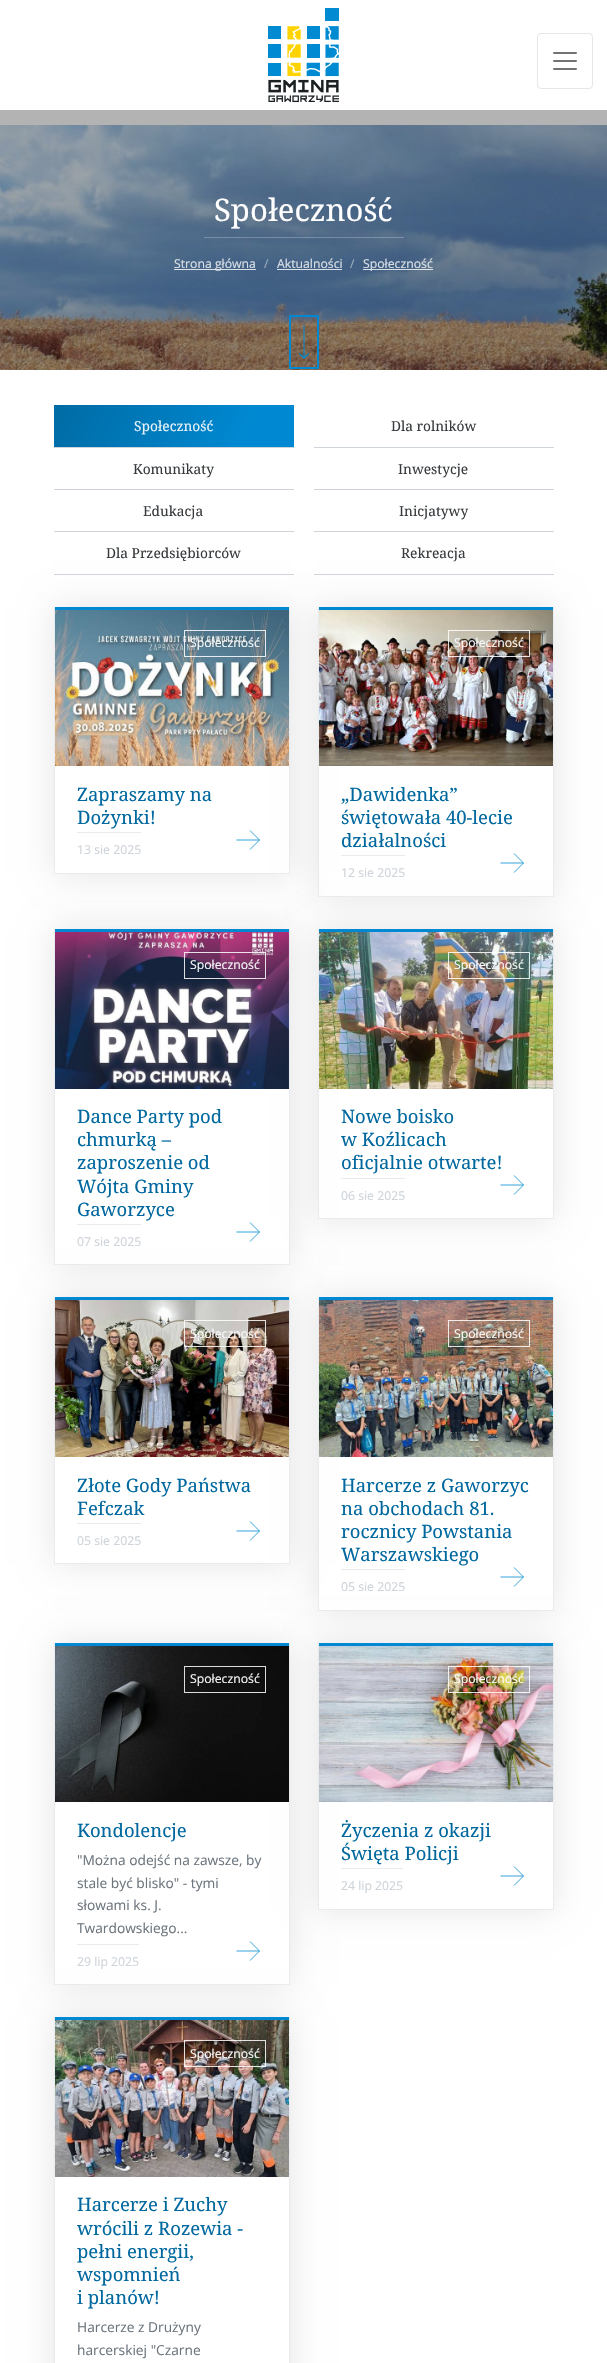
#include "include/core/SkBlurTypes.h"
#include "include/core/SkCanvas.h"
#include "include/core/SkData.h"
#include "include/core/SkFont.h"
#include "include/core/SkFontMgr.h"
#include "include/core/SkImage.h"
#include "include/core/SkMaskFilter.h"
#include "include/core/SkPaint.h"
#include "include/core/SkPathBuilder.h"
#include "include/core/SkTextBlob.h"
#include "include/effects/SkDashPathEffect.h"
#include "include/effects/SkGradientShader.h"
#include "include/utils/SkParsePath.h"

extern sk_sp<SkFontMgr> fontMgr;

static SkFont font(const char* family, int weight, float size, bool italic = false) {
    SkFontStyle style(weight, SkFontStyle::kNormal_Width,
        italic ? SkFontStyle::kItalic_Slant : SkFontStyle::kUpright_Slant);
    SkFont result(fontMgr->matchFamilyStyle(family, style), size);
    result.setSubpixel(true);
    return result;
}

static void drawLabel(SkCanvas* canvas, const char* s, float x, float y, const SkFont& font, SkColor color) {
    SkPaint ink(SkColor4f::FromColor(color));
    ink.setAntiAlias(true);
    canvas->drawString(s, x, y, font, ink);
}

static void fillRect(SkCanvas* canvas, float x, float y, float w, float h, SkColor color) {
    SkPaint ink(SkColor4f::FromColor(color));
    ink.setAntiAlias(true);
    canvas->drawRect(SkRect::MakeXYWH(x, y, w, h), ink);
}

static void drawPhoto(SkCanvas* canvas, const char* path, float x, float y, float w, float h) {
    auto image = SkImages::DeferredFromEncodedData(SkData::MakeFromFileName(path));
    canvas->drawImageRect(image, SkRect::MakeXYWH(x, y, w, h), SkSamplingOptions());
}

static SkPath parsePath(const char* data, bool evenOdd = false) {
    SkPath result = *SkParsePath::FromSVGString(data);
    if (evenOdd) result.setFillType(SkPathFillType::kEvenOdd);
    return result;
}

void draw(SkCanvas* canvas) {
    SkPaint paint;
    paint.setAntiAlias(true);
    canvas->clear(0xFFFFFFFF);
    fillRect(canvas, 0, 110, 607, 15, 0xFFB3B3B3);
    drawPhoto(canvas, "assets/img1.png", 268, 8, 71, 95);
    paint.setStroke(true);
    paint.setStrokeWidth(1);
    paint.setColor(0xFFE6E6E6);
    canvas->drawRoundRect(SkRect::MakeXYWH(537.5f, 33.5f, 55, 55), 3.5f, 3.5f, paint);
    drawPhoto(canvas, "assets/img2.png", 553, 52, 24, 18);
    drawPhoto(canvas, "assets/img3.png", 0, 125, 607, 245);
    fillRect(canvas, 204, 237, 200, 1, 0x40F8F9FA);
    SkFont font1 = font("Noto Serif", 400, 31);
    drawLabel(canvas, "Społeczność", 214, 221, font1, 0xFFFFFFFF);
    fillRect(canvas, 174, 269, 82, 1, 0xCCFFFFFF);
    SkFont font2 = font("Open Sans", 400, 12.25f);
    drawLabel(canvas, "Strona główna", 174, 268, font2, 0xFFDAE0E7);
    drawLabel(canvas, "/", 264, 268, font2, 0xFFA1B1C2);
    drawLabel(canvas, "Aktualności", 277, 268, font2, 0xFFDAE0E7);
    fillRect(canvas, 277, 269, 65, 1, 0xCCFFFFFF);
    drawLabel(canvas, "/", 350, 268, font2, 0xFFA1B1C2);
    fillRect(canvas, 363, 269, 70, 1, 0xCCFFFFFF);
    drawLabel(canvas, "Społeczność", 363, 268, font2, 0xFFDAE0E7);
    paint.setStrokeWidth(2);
    paint.setColor(0xFF0089D2);
    canvas->drawRect(SkRect::MakeXYWH(290, 316, 28, 52), paint);
    paint.setStroke(false);
    canvas->drawPath(parsePath("M299.5 353L299 354L303.5 358.5H304.5L309 354L308.5 353L304.5 356.5V325.5H303.5V356.5Z"), paint);
    fillRect(canvas, 54, 447, 240, 1, 0xFFCED4DA);
    {
        const SkColor colors[] = {0xFF0089D2, 0xFF006BA4};
        const float stops[] = {0.2f, 1};
        const SkPoint ends[] = {{281, 476}, {67, 376}};
        paint.setShader(SkGradientShader::MakeLinear(ends, colors, stops, 2, SkTileMode::kClamp));
        paint.setAlpha(255);
    }
    canvas->drawRect(SkRect::MakeXYWH(54, 405, 240, 42), paint);
    SkFont font3 = font("Noto Serif", 400, 13.75f);
    drawLabel(canvas, "Społeczność", 134, 431, font3, 0xFFE6F2F9);
    fillRect(canvas, 314, 447, 240, 1, 0xFFCED4DA);
    drawLabel(canvas, "Dla rolników", 391, 431, font3, 0xFF373B3E);
    fillRect(canvas, 54, 489, 240, 1, 0xFFCED4DA);
    drawLabel(canvas, "Komunikaty", 133, 474, font3, 0xFF373B3E);
    fillRect(canvas, 314, 489, 240, 1, 0xFFCED4DA);
    drawLabel(canvas, "Inwestycje", 398, 474, font3, 0xFF373B3E);
    fillRect(canvas, 54, 531, 240, 1, 0xFFCED4DA);
    drawLabel(canvas, "Edukacja", 143, 516, font3, 0xFF373B3E);
    fillRect(canvas, 314, 531, 240, 1, 0xFFCED4DA);
    drawLabel(canvas, "Inicjatywy", 399, 516, font3, 0xFF373B3E);
    canvas->save();
    canvas->clipPath(parsePath("M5 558H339V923H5ZM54 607H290V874H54Z", true), true);
    paint.setShader(nullptr);
    paint.setColor(0x1A000000);
    paint.setMaskFilter(SkMaskFilter::MakeBlur(kNormal_SkBlurStyle, 16));
    canvas->drawRect(SkRect::MakeXYWH(54, 607, 236, 267), paint);
    paint.setMaskFilter(nullptr);
    canvas->restore();
    canvas->save();
    canvas->clipPath(parsePath("M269 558H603V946H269ZM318 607H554V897H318Z", true), true);
    paint.setMaskFilter(SkMaskFilter::MakeBlur(kNormal_SkBlurStyle, 16));
    canvas->drawRect(SkRect::MakeXYWH(318, 607, 236, 290), paint);
    paint.setMaskFilter(nullptr);
    canvas->restore();
    fillRect(canvas, 54, 574, 240, 1, 0xFFCED4DA);
    drawLabel(canvas, "Dla Przedsiębiorców", 106, 558, font3, 0xFF373B3E);
    fillRect(canvas, 314, 574, 240, 1, 0xFFCED4DA);
    drawLabel(canvas, "Rekreacja", 401, 558, font3, 0xFF373B3E);
    paint.setStroke(true);
    paint.setStrokeWidth(1);
    paint.setColor(0xFFE9ECEF);
    canvas->drawRect(SkRect::MakeXYWH(54.5f, 607.5f, 235, 266), paint);
    fillRect(canvas, 55, 607, 234, 3, 0xFF0089D2);
    drawPhoto(canvas, "assets/img4.png", 55, 610, 234, 156);
    paint.setColor(0xD9FFFFFF);
    canvas->drawRect(SkRect::MakeXYWH(184.5f, 630.5f, 81, 26), paint);
    drawLabel(canvas, "Społeczność", 190, 647, font2, 0xFFF8F9FA);
    SkFont font4 = font("Noto Serif", 400, 18.5f);
    drawLabel(canvas, "Zapraszamy na", 77, 801, font4, 0xFF00689F);
    drawLabel(canvas, "Dożynki!", 77, 824, font4, 0xFF00689F);
    drawLabel(canvas, "13 sie 2025", 77, 854, font2, 0xFFCED4DA);
    fillRect(canvas, 77, 832, 64, 1, 0xFFE9ECEF);
    paint.setStrokeWidth(0.8f);
    paint.setColor(0xFF0089D2);
    canvas->drawPath(parsePath("M250 849.5L259.5 840L250 830.5M259.5 840H236.5"), paint);
    canvas->save();
    canvas->clipPath(parsePath("M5 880H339V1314H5ZM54 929H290V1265H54Z", true), true);
    paint.setStroke(false);
    paint.setColor(0x1A000000);
    paint.setMaskFilter(SkMaskFilter::MakeBlur(kNormal_SkBlurStyle, 16));
    canvas->drawRect(SkRect::MakeXYWH(54, 929, 236, 336), paint);
    paint.setMaskFilter(nullptr);
    canvas->restore();
    canvas->save();
    canvas->clipPath(parsePath("M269 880H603V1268H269ZM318 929H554V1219H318Z", true), true);
    paint.setMaskFilter(SkMaskFilter::MakeBlur(kNormal_SkBlurStyle, 16));
    canvas->drawRect(SkRect::MakeXYWH(318, 929, 236, 290), paint);
    paint.setMaskFilter(nullptr);
    canvas->restore();
    paint.setStroke(true);
    paint.setStrokeWidth(1);
    paint.setColor(0xFFE9ECEF);
    canvas->drawRect(SkRect::MakeXYWH(318.5f, 607.5f, 235, 289), paint);
    fillRect(canvas, 319, 607, 234, 3, 0xFF0089D2);
    drawPhoto(canvas, "assets/img5.png", 319, 610, 234, 156);
    paint.setColor(0xD9FFFFFF);
    canvas->drawRect(SkRect::MakeXYWH(448.5f, 630.5f, 81, 26), paint);
    drawLabel(canvas, "Społeczność", 454, 647, font2, 0xFFF8F9FA);
    drawLabel(canvas, "„Dawidenka”", 341, 801, font4, 0xFF00689F);
    drawLabel(canvas, "świętowała 40-lecie", 341, 824, font4, 0xFF00689F);
    drawLabel(canvas, "działalności", 341, 847, font4, 0xFF00689F);
    drawLabel(canvas, "12 sie 2025", 341, 877, font2, 0xFFCED4DA);
    fillRect(canvas, 341, 855, 64, 1, 0xFFE9ECEF);
    paint.setStrokeWidth(0.8f);
    paint.setColor(0xFF0089D2);
    canvas->drawPath(parsePath("M514 872.5L523.5 863L514 853.5M523.5 863H500.5"), paint);
    canvas->save();
    canvas->clipPath(parsePath("M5 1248H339V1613H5ZM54 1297H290V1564H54Z", true), true);
    paint.setStroke(false);
    paint.setColor(0x1A000000);
    paint.setMaskFilter(SkMaskFilter::MakeBlur(kNormal_SkBlurStyle, 16));
    canvas->drawRect(SkRect::MakeXYWH(54, 1297, 236, 267), paint);
    paint.setMaskFilter(nullptr);
    canvas->restore();
    canvas->save();
    canvas->clipPath(parsePath("M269 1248H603V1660H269ZM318 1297H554V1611H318Z", true), true);
    paint.setMaskFilter(SkMaskFilter::MakeBlur(kNormal_SkBlurStyle, 16));
    canvas->drawRect(SkRect::MakeXYWH(318, 1297, 236, 314), paint);
    paint.setMaskFilter(nullptr);
    canvas->restore();
    paint.setStroke(true);
    paint.setStrokeWidth(1);
    paint.setColor(0xFFE9ECEF);
    canvas->drawRect(SkRect::MakeXYWH(54.5f, 929.5f, 235, 335), paint);
    fillRect(canvas, 55, 929, 234, 3, 0xFF0089D2);
    drawPhoto(canvas, "assets/img6.png", 55, 932, 234, 157);
    paint.setColor(0xD9FFFFFF);
    canvas->drawRect(SkRect::MakeXYWH(184.5f, 952.5f, 81, 26), paint);
    drawLabel(canvas, "Społeczność", 190, 969, font2, 0xFFF8F9FA);
    drawLabel(canvas, "Dance Party pod", 77, 1123, font4, 0xFF00689F);
    drawLabel(canvas, "chmurką –", 77, 1146, font4, 0xFF00689F);
    drawLabel(canvas, "zaproszenie od", 77, 1169, font4, 0xFF00689F);
    drawLabel(canvas, "Wójta Gminy", 77, 1193, font4, 0xFF00689F);
    drawLabel(canvas, "Gaworzyce", 77, 1216, font4, 0xFF00689F);
    drawLabel(canvas, "07 sie 2025", 77, 1246, font2, 0xFFCED4DA);
    fillRect(canvas, 77, 1224, 64, 1, 0xFFE9ECEF);
    paint.setStrokeWidth(0.8f);
    paint.setColor(0xFF0089D2);
    canvas->drawPath(parsePath("M250 1241.5L259.5 1232L250 1222.5M259.5 1232H236.5"), paint);
    paint.setStrokeWidth(1);
    paint.setColor(0xFFE9ECEF);
    canvas->drawRect(SkRect::MakeXYWH(318.5f, 929.5f, 235, 289), paint);
    fillRect(canvas, 319, 929, 234, 3, 0xFF0089D2);
    drawPhoto(canvas, "assets/img7.png", 319, 932, 234, 157);
    paint.setColor(0xD9FFFFFF);
    canvas->drawRect(SkRect::MakeXYWH(448.5f, 952.5f, 81, 26), paint);
    drawLabel(canvas, "Społeczność", 454, 969, font2, 0xFFF8F9FA);
    drawLabel(canvas, "Nowe boisko", 341, 1123, font4, 0xFF00689F);
    drawLabel(canvas, "w Koźlicach", 341, 1146, font4, 0xFF00689F);
    drawLabel(canvas, "oficjalnie otwarte!", 341, 1169, font4, 0xFF00689F);
    paint.setStrokeWidth(0.8f);
    paint.setColor(0xFF0089D2);
    canvas->drawPath(parsePath("M514 1194.5L523.5 1185L514 1175.5M523.5 1185H500.5"), paint);
    drawLabel(canvas, "06 sie 2025", 341, 1200, font2, 0xFFCED4DA);
    fillRect(canvas, 341, 1178, 64, 1, 0xFFE9ECEF);
    paint.setStrokeWidth(1);
    paint.setColor(0xFFE9ECEF);
    canvas->drawRect(SkRect::MakeXYWH(54.5f, 1297.5f, 235, 266), paint);
    fillRect(canvas, 55, 1297, 234, 3, 0xFF0089D2);
    drawPhoto(canvas, "assets/img8.png", 55, 1300, 234, 157);
    paint.setColor(0xD9FFFFFF);
    canvas->drawRect(SkRect::MakeXYWH(184.5f, 1320.5f, 81, 26), paint);
    drawLabel(canvas, "Społeczność", 190, 1338, font2, 0xFFF8F9FA);
    drawLabel(canvas, "Złote Gody Państwa", 77, 1492, font4, 0xFF00689F);
    drawLabel(canvas, "Fefczak", 77, 1515, font4, 0xFF00689F);
    drawLabel(canvas, "05 sie 2025", 77, 1545, font2, 0xFFCED4DA);
    fillRect(canvas, 77, 1523, 64, 1, 0xFFE9ECEF);
    paint.setStrokeWidth(0.8f);
    paint.setColor(0xFF0089D2);
    canvas->drawPath(parsePath("M250 1540.5L259.5 1531L250 1521.5M259.5 1531H236.5"), paint);
    canvas->save();
    canvas->clipPath(parsePath("M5 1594H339V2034H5ZM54 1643H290V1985H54Z", true), true);
    paint.setStroke(false);
    paint.setColor(0x1A000000);
    paint.setMaskFilter(SkMaskFilter::MakeBlur(kNormal_SkBlurStyle, 16));
    canvas->drawRect(SkRect::MakeXYWH(54, 1643, 236, 342), paint);
    paint.setMaskFilter(nullptr);
    canvas->restore();
    canvas->save();
    canvas->clipPath(parsePath("M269 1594H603V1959H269ZM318 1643H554V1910H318Z", true), true);
    paint.setMaskFilter(SkMaskFilter::MakeBlur(kNormal_SkBlurStyle, 16));
    canvas->drawRect(SkRect::MakeXYWH(318, 1643, 236, 267), paint);
    paint.setMaskFilter(nullptr);
    canvas->restore();
    paint.setStroke(true);
    paint.setStrokeWidth(1);
    paint.setColor(0xFFE9ECEF);
    canvas->drawRect(SkRect::MakeXYWH(318.5f, 1297.5f, 235, 313), paint);
    fillRect(canvas, 319, 1297, 234, 3, 0xFF0089D2);
    drawPhoto(canvas, "assets/img9.png", 319, 1300, 234, 157);
    paint.setColor(0xD9FFFFFF);
    canvas->drawRect(SkRect::MakeXYWH(448.5f, 1320.5f, 81, 26), paint);
    drawLabel(canvas, "Społeczność", 454, 1338, font2, 0xFFF8F9FA);
    drawLabel(canvas, "Harcerze z Gaworzyc", 341, 1492, font4, 0xFF00689F);
    drawLabel(canvas, "na obchodach 81.", 341, 1515, font4, 0xFF00689F);
    drawLabel(canvas, "rocznicy Powstania", 341, 1538, font4, 0xFF00689F);
    drawLabel(canvas, "Warszawskiego", 341, 1561, font4, 0xFF00689F);
    drawLabel(canvas, "05 sie 2025", 341, 1591, font2, 0xFFCED4DA);
    fillRect(canvas, 341, 1569, 64, 1, 0xFFE9ECEF);
    paint.setStrokeWidth(0.8f);
    paint.setColor(0xFF0089D2);
    canvas->drawPath(parsePath("M514 1586.5L523.5 1577L514 1567.5M523.5 1577H500.5"), paint);
    canvas->save();
    canvas->clipPath(parsePath("M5 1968H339V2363H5ZM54 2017H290V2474H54Z", true), true);
    paint.setStroke(false);
    paint.setColor(0x1A000000);
    paint.setMaskFilter(SkMaskFilter::MakeBlur(kNormal_SkBlurStyle, 16));
    canvas->drawRect(SkRect::MakeXYWH(54, 2017, 236, 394), paint);
    paint.setMaskFilter(nullptr);
    canvas->restore();
    paint.setStroke(true);
    paint.setStrokeWidth(1);
    paint.setColor(0xFFE9ECEF);
    canvas->drawRect(SkRect::MakeXYWH(54.5f, 1643.5f, 235, 341), paint);
    fillRect(canvas, 55, 1643, 234, 3, 0xFF0089D2);
    drawPhoto(canvas, "assets/img10.png", 55, 1646, 234, 156);
    paint.setColor(0xD9FFFFFF);
    canvas->drawRect(SkRect::MakeXYWH(184.5f, 1666.5f, 81, 26), paint);
    drawLabel(canvas, "Społeczność", 190, 1683, font2, 0xFFF8F9FA);
    drawLabel(canvas, "Kondolencje", 77, 1837, font4, 0xFF00689F);
    SkFont font5 = font("Open Sans", 400, 13.75f);
    drawLabel(canvas, "\"Można odejść na zawsze, by", 77, 1865, font5, 0xFF6C757D);
    drawLabel(canvas, "stale być blisko\" - tymi", 77, 1888, font5, 0xFF6C757D);
    drawLabel(canvas, "słowami ks. J.", 77, 1910, font5, 0xFF6C757D);
    drawLabel(canvas, "Twardowskiego...", 77, 1933, font5, 0xFF6C757D);
    paint.setStrokeWidth(0.8f);
    paint.setColor(0xFF0089D2);
    canvas->drawPath(parsePath("M250 1960.5L259.5 1951L250 1941.5M259.5 1951H236.5"), paint);
    drawLabel(canvas, "29 lip 2025", 77, 1966, font2, 0xFFCED4DA);
    fillRect(canvas, 77, 1944, 62, 1, 0xFFE9ECEF);
    paint.setStrokeWidth(1);
    paint.setColor(0xFFE9ECEF);
    canvas->drawRect(SkRect::MakeXYWH(318.5f, 1643.5f, 235, 266), paint);
    fillRect(canvas, 319, 1643, 234, 3, 0xFF0089D2);
    drawPhoto(canvas, "assets/img11.png", 319, 1646, 234, 156);
    paint.setColor(0xD9FFFFFF);
    canvas->drawRect(SkRect::MakeXYWH(448.5f, 1666.5f, 81, 26), paint);
    drawLabel(canvas, "Społeczność", 454, 1683, font2, 0xFFF8F9FA);
    drawLabel(canvas, "Życzenia z okazji", 341, 1837, font4, 0xFF00689F);
    drawLabel(canvas, "Święta Policji", 341, 1860, font4, 0xFF00689F);
    drawLabel(canvas, "24 lip 2025", 341, 1890, font2, 0xFFCED4DA);
    fillRect(canvas, 341, 1868, 62, 1, 0xFFE9ECEF);
    paint.setStrokeWidth(0.8f);
    paint.setColor(0xFF0089D2);
    canvas->drawPath(parsePath("M514 1885.5L523.5 1876L514 1866.5M523.5 1876H500.5"), paint);
    paint.setStrokeWidth(1);
    paint.setColor(0xFFE9ECEF);
    canvas->drawRect(SkRect::MakeXYWH(54.5f, 2017.5f, 235, 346), paint);
    fillRect(canvas, 55, 2017, 234, 3, 0xFF0089D2);
    drawPhoto(canvas, "assets/img12.png", 55, 2020, 234, 157);
    paint.setColor(0xD9FFFFFF);
    canvas->drawRect(SkRect::MakeXYWH(184.5f, 2040.5f, 81, 26), paint);
    drawLabel(canvas, "Społeczność", 190, 2058, font2, 0xFFF8F9FA);
    drawLabel(canvas, "Harcerze i Zuchy", 77, 2211, font4, 0xFF00689F);
    drawLabel(canvas, "wrócili z Rozewia -", 77, 2235, font4, 0xFF00689F);
    drawLabel(canvas, "pełni energii,", 77, 2258, font4, 0xFF00689F);
    drawLabel(canvas, "wspomnień", 77, 2281, font4, 0xFF00689F);
    drawLabel(canvas, "i planów!", 77, 2304, font4, 0xFF00689F);
    drawLabel(canvas, "Harcerze z Drużyny", 77, 2332, font5, 0xFF6C757D);
    drawLabel(canvas, "harcerskiej \"Czarne", 77, 2355, font5, 0xFF6C757D);
}
